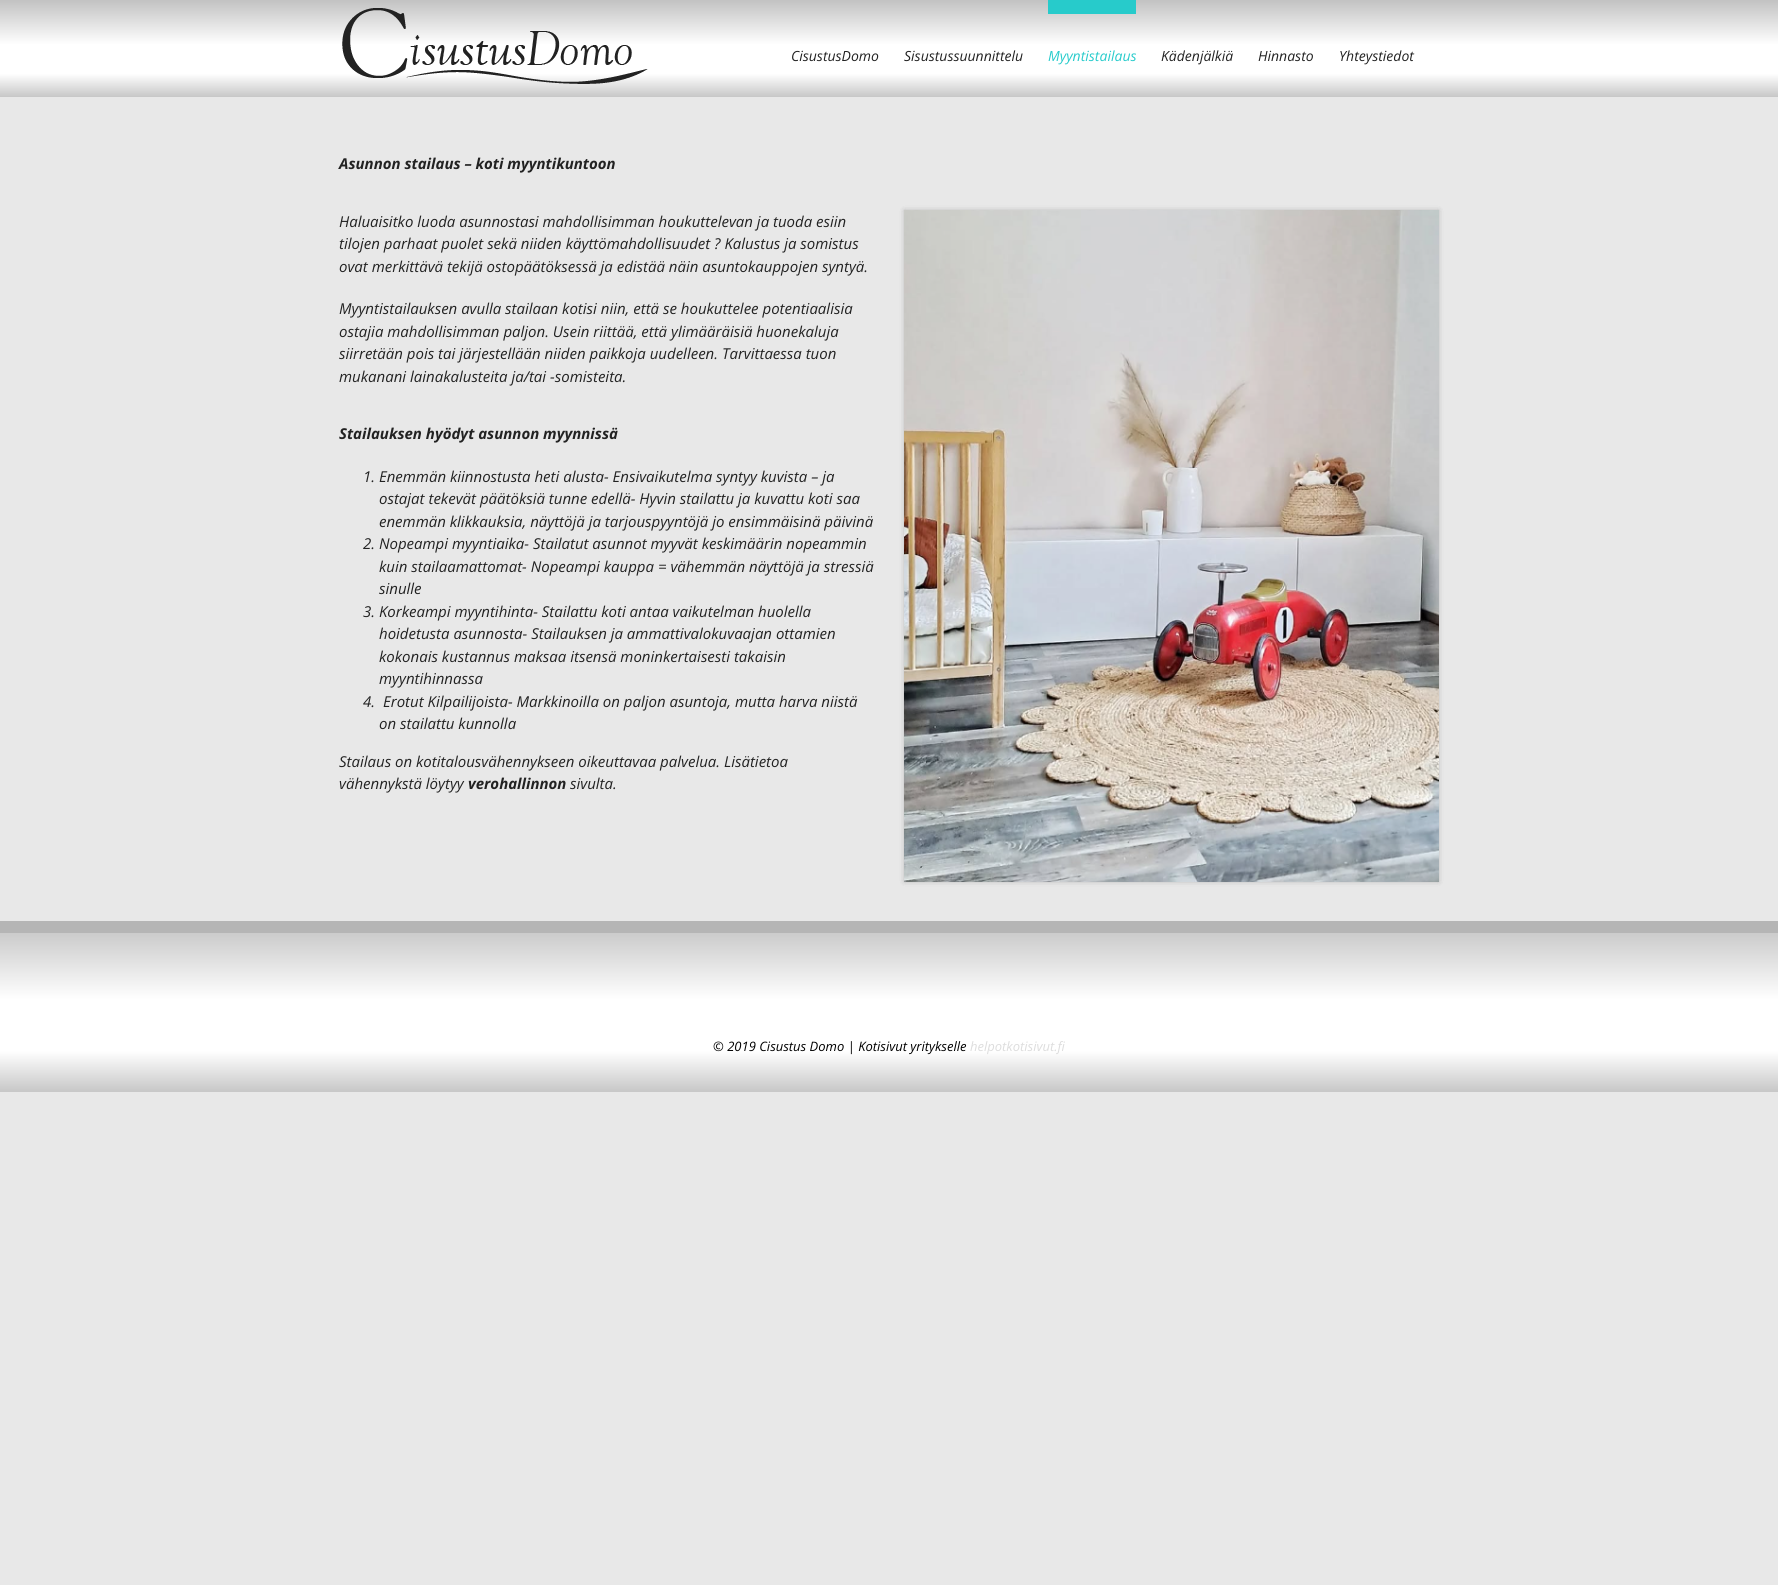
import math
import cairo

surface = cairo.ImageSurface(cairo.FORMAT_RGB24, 1778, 1585)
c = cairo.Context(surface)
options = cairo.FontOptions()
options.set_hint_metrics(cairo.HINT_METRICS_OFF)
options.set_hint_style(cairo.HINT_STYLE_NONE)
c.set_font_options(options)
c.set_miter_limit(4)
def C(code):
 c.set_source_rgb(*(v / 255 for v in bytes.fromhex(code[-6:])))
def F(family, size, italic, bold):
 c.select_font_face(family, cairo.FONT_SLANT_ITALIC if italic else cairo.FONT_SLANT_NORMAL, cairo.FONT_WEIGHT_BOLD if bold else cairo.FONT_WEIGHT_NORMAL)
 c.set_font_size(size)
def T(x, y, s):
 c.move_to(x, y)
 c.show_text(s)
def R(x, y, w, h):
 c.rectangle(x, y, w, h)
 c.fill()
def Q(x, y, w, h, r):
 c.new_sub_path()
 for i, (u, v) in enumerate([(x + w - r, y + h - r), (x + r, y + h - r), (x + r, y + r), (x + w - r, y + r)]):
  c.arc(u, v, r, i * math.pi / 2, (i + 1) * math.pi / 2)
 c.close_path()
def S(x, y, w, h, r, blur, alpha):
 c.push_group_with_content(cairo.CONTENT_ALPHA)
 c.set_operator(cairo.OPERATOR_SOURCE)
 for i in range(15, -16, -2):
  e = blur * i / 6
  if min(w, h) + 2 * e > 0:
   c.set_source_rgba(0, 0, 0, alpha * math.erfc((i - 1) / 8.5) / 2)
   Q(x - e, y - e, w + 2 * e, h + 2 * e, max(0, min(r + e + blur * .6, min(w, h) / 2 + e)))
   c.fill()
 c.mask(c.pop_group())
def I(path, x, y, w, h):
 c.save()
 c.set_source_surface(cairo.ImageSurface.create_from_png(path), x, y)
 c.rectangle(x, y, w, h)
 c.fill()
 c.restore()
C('e8e8e8')
c.paint()
gradient = cairo.LinearGradient(889,0,889,97)
gradient.add_color_stop_rgba(0,0.761,0.761,0.761,1)
gradient.add_color_stop_rgba(.46,1,1,1,1)
gradient.add_color_stop_rgba(.76,1,1,1,1)
gradient.add_color_stop_rgba(1,0.78,0.78,0.78,1)
c.set_source(gradient)
R(0,0,1778,97)
I('1.png',342,8,306,76)
F('Open Sans',14,1,0)
C('222222')
T(791,61,'CisustusDomo')
T(904,61,'Sisustussuunnittelu')
C('27cbcb')
R(1048,0,88,14)
T(1048,61,'Myyntistailaus')
C('222222')
T(1161,61,'Kädenjälkiä')
T(1258,61,'Hinnasto')
T(1339,61,'Yhteystiedot')
F('Open Sans',15,1,1)
T(339,169,'Asunnon stailaus – koti myyntikuntoon')
F('Open Sans',15,1,0)
T(339,227,'Haluaisitko luoda asunnostasi mahdollisimman houkuttelevan ja tuoda esiin')
T(339,249,'tilojen parhaat puolet sekä niiden käyttömahdollisuudet ? Kalustus ja somistus')
T(339,272,'ovat merkittävä tekijä ostopäätöksessä ja edistää näin asuntokauppojen syntyä.')
T(339,314,'Myyntistailauksen avulla stailaan kotisi niin, että se houkuttelee potentiaalisia')
T(339,337,'ostajia mahdollisimman paljon. Usein riittää, että ylimääräisiä huonekaluja')
T(339,359,'siirretään pois tai järjestellään niiden paikkoja uudelleen. Tarvittaessa tuon')
T(339,382,'mukanani lainakalusteita ja/tai -somisteita.')
F('Open Sans',15,1,1)
T(339,439,'Stailauksen hyödyt asunnon myynnissä')
F('Open Sans',15,1,0)
T(363,482,'1. Enemmän kiinnostusta heti alusta- Ensivaikutelma syntyy kuvista – ja')
T(379,504,'ostajat tekevät päätöksiä tunne edellä- Hyvin stailattu ja kuvattu koti saa')
T(379,527,'enemmän klikkauksia, näyttöjä ja tarjouspyyntöjä jo ensimmäisinä päivinä')
T(363,549,'2. Nopeampi myyntiaika- Stailatut asunnot myyvät keskimäärin nopeammin')
T(379,572,'kuin stailaamattomat- Nopeampi kauppa = vähemmän näyttöjä ja stressiä')
T(379,594,'sinulle')
T(363,617,'3. Korkeampi myyntihinta- Stailattu koti antaa vaikutelman huolella')
T(379,639,'hoidetusta asunnosta- Stailauksen ja ammattivalokuvaajan ottamien')
T(379,662,'kokonais kustannus maksaa itsensä moninkertaisesti takaisin')
T(379,684,'myyntihinnassa')
T(363,707,'4.')
T(383,707,'Erotut Kilpailijoista- Markkinoilla on paljon asuntoja, mutta harva niistä')
T(379,729,'on stailattu kunnolla')
T(339,767,'Stailaus on kotitalousvähennykseen oikeuttavaa palvelua. Lisätietoa')
T(339,789,'vähennykstä löytyy')
F('Open Sans',15,1,1)
T(468,789,'verohallinnon')
F('Open Sans',15,1,0)
T(570,789,'sivulta.')
C('000000')
S(904,210,535,672,0,2.5,.1)
S(904,210,535,672,0,2.5,.1)
I('2.png',904,210,535,672)
gradient = cairo.LinearGradient(889,921,889,1092)
gradient.add_color_stop_rgba(0,0.761,0.761,0.761,1)
gradient.add_color_stop_rgba(.46,1,1,1,1)
gradient.add_color_stop_rgba(.76,1,1,1,1)
gradient.add_color_stop_rgba(1,0.78,0.78,0.78,1)
c.set_source(gradient)
R(0,933,1778,159)
C('b5b5b5')
R(0,921,1778,12)
F('Open Sans',13,1,0)
C('000000')
T(713,1051,'© 2019 Cisustus Domo | Kotisivut yritykselle')
C('dddddd')
T(970,1051,'helpotkotisivut.fi')
surface.write_to_png('o.png')
